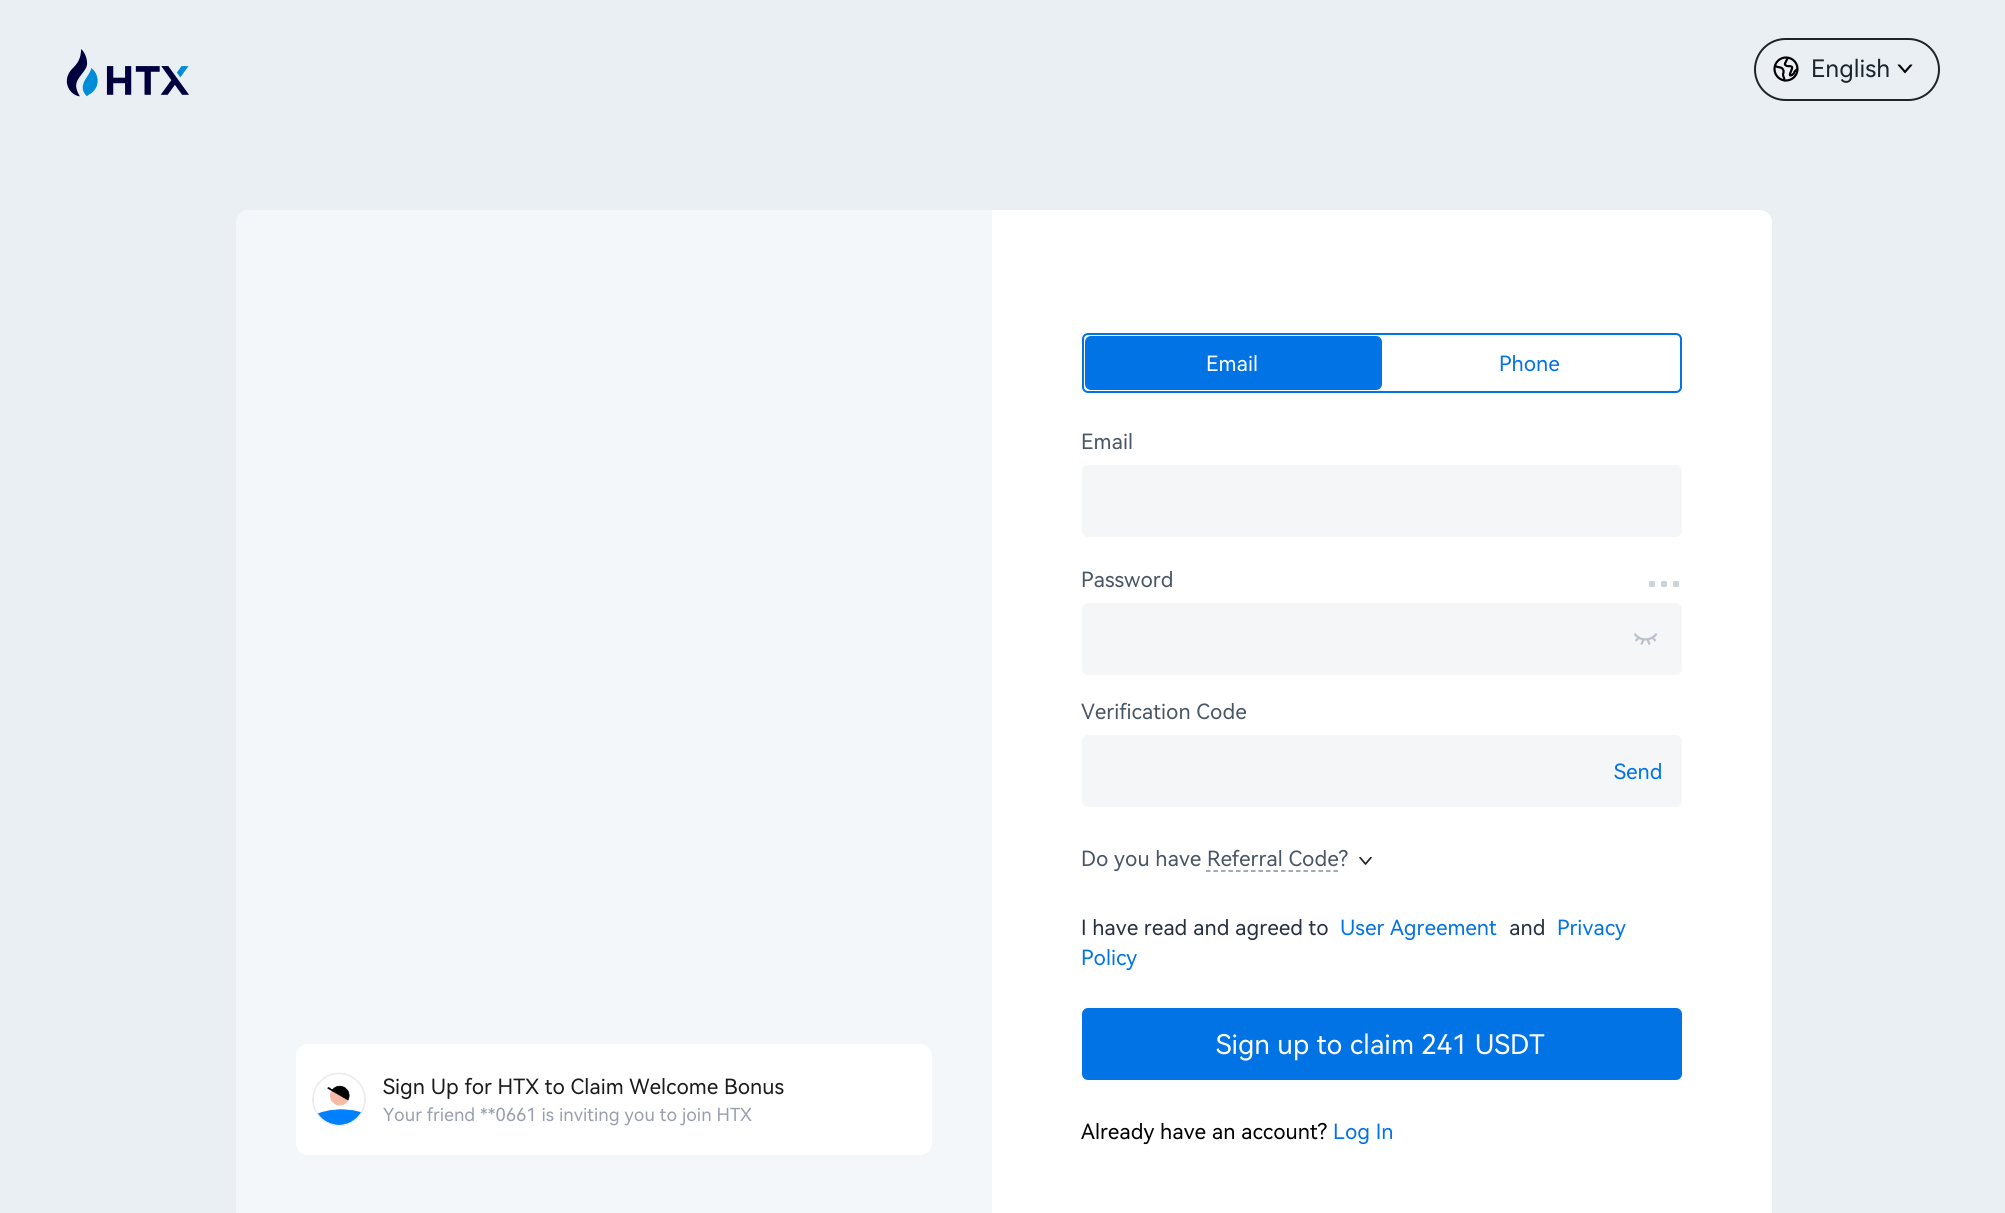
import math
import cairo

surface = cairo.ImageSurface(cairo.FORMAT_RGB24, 2005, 1213)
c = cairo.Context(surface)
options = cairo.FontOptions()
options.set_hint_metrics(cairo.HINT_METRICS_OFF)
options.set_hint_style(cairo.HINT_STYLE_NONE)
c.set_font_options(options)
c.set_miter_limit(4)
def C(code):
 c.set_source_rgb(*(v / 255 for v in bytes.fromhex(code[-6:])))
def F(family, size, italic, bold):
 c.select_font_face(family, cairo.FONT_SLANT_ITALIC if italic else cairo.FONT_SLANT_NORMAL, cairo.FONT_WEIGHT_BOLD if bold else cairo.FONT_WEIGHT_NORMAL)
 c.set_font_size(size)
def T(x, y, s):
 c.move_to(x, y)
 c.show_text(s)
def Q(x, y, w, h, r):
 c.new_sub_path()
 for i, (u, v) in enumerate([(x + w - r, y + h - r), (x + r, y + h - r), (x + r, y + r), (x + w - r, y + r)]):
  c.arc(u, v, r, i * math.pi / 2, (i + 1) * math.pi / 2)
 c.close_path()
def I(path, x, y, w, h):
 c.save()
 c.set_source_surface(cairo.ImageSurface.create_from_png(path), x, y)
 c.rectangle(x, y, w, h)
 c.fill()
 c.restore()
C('eaeff4')
c.paint()
I('1.png',66,49,123,48)
Q(1755,39,184,61,30.5)
C('1c242c')
c.stroke()
I('2.png',1773,56,26,26)
F('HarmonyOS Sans',24,0,0)
T(1811,77,'English')
I('3.png',1897,64,16,10)
C('f4f7fa')
c.new_path()
c.move_to(248,210)
c.line_to(992,210)
c.line_to(992,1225)
c.line_to(248,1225)
c.curve_to(241.5,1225,236,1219.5,236,1213)
c.line_to(236,222)
c.curve_to(236,215.5,241.5,210,248,210)
c.close_path()
c.fill()
C('ffffff')
Q(296,1044,636,111,12)
c.fill()
I('4.png',312,1072,54,55)
F('HarmonyOS Sans',21,0,0)
C('1c1c1e')
T(383,1094,'Sign Up for HTX to Claim Welcome Bonus')
F('HarmonyOS Sans',18,0,0)
C('98a0af')
T(383,1121,'Your friend **0661 is inviting you to join HTX')
C('ffffff')
c.new_path()
c.move_to(992,210)
c.line_to(1760,210)
c.curve_to(1766.5,210,1772,215.5,1772,222)
c.line_to(1772,1213)
c.curve_to(1772,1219.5,1766.5,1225,1760,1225)
c.line_to(992,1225)
c.close_path()
c.fill()
Q(1083,334,598,58,5)
C('0173e5')
c.stroke()
Q(1085,336,297,54,6)
c.fill()
F('HarmonyOS Sans',21,0,0)
C('ffffff')
T(1206,371,'Email')
C('0173e5')
T(1499,371,'Phone')
C('495666')
T(1081,449,'Email')
C('f4f6f7')
Q(1082,465,600,72,6)
c.fill()
C('495666')
T(1081,587,'Password')
C('ccd2da')
Q(1649,581,6,6,1.5)
c.fill()
Q(1661,581,6,6,1.5)
c.fill()
Q(1673,581,6,6,1.5)
c.fill()
C('f4f6f7')
Q(1082,603,600,72,6)
c.fill()
I('5.png',1634,633,24,12)
C('495666')
T(1081,719,'Verification Code')
C('f4f6f7')
Q(1082,735,600,72,6)
c.fill()
C('0173e5')
T(1614,779,'Send')
C('495666')
T(1081,866,'Do you have Referral Code?')
c.new_path()
c.move_to(1206,871)
c.line_to(1338,871)
C('7f8fa4')
c.set_line_width(1.5)
c.set_dash([4.5,3])
c.stroke()
c.save()
c.rectangle(1359,857,14,9)
c.clip()
c.new_path()
c.move_to(1360,857.5)
c.line_to(1365.5,864)
c.line_to(1371,857.5)
C('222222')
c.set_line_width(1.7)
c.set_line_cap(cairo.LINE_CAP_ROUND)
c.set_line_join(cairo.LINE_JOIN_ROUND)
c.set_dash([])
c.stroke()
c.restore()
C('263241')
T(1081,935,'I have read and agreed to')
C('0173e5')
T(1340,935,'User Agreement')
C('263241')
T(1509,935,'and')
C('0173e5')
T(1557,935,'Privacy')
T(1081,965,'Policy')
Q(1082,1008,600,72,6)
c.fill()
F('HarmonyOS Sans',27,0,0)
C('ffffff')
T(1216,1054,'Sign up to claim 241 USDT')
F('HarmonyOS Sans',21,0,0)
C('000000')
T(1081,1139,'Already have an account?')
C('0173e5')
T(1333,1139,'Log In')
surface.write_to_png('o.png')
